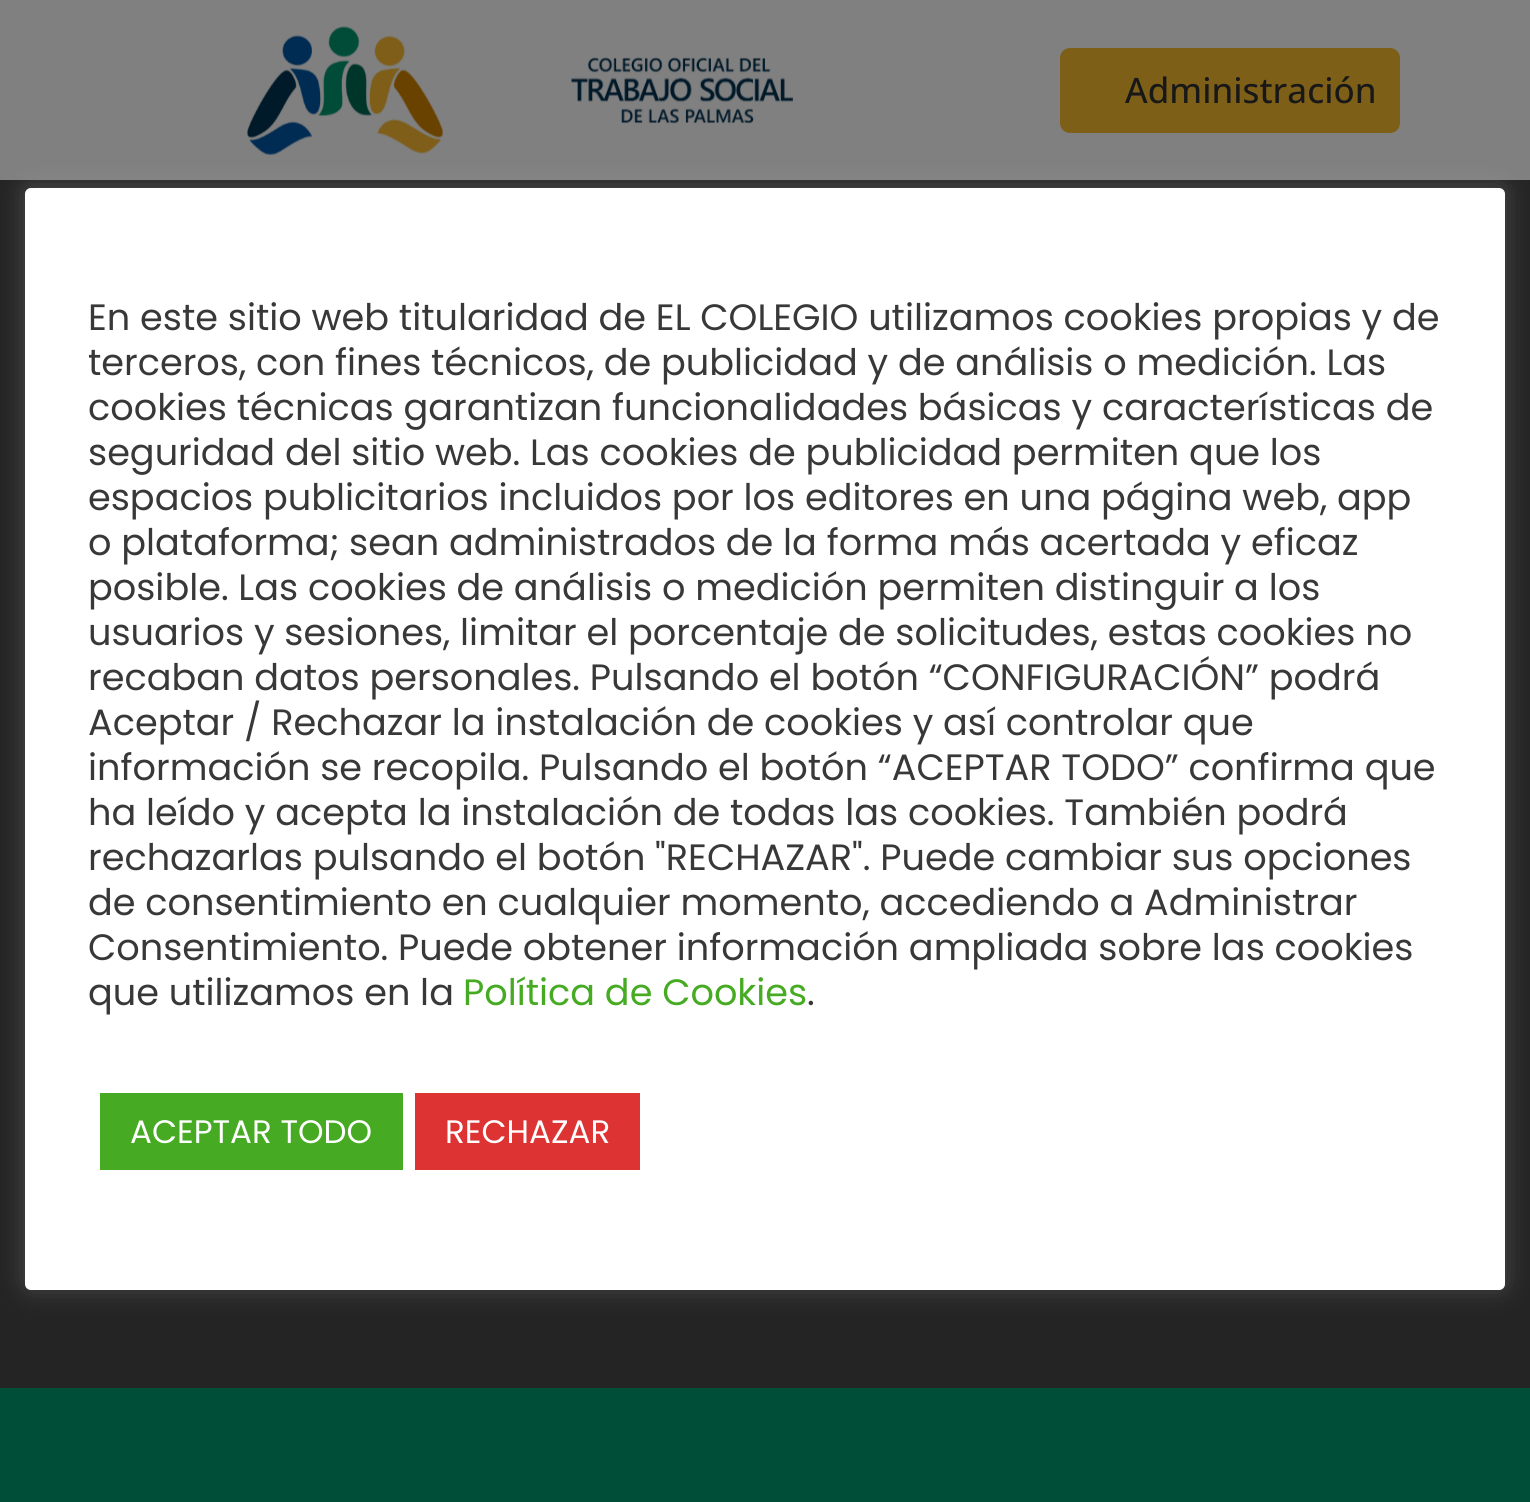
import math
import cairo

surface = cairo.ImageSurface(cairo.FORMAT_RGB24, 1530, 1502)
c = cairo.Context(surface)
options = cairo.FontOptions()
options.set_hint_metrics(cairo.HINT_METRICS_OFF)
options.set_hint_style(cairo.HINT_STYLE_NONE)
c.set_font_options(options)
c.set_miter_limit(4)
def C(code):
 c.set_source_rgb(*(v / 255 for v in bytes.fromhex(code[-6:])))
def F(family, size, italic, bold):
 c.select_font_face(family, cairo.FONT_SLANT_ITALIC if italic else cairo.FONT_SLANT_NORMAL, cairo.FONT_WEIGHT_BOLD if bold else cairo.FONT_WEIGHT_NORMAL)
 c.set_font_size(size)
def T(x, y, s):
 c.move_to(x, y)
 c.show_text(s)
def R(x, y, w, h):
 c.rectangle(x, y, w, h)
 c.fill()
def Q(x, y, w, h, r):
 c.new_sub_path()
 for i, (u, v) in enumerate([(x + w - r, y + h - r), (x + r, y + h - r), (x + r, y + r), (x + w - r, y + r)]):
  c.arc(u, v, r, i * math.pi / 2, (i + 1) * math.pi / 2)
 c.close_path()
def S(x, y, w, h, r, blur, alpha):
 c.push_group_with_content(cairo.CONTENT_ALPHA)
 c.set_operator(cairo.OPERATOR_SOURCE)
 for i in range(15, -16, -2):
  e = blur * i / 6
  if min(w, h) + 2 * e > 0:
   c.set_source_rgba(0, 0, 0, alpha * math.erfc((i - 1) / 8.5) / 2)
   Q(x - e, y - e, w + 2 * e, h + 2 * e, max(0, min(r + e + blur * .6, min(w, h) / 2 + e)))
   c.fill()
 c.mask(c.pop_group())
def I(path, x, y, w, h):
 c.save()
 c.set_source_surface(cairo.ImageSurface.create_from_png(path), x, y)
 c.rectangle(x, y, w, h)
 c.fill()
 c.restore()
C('242424')
c.paint()
C('808080')
R(0,0,1530,180)
I('1.png',247,26,196,130)
I('2.png',571,57,222,67)
C('7e5f18')
Q(1060,48,340,85,10)
c.fill()
F('Open Sans Medium',35,0,0)
C('181818')
T(1125,103,'Administración')
C('004d38')
R(0,1388,1530,114)
C('acabab')
S(25,185,1480,1103,6,12.5,.3)
C('ffffff')
Q(25,188,1480,1102,6)
c.fill()
F('Poppins',36.65,0,0)
C('383838')
T(88,330,'En este sitio web titularidad de EL COLEGIO utilizamos cookies propias y de')
T(88,375,'terceros, con fines técnicos, de publicidad y de análisis o medición. Las')
T(88,420,'cookies técnicas garantizan funcionalidades básicas y características de')
T(88,465,'seguridad del sitio web. Las cookies de publicidad permiten que los')
T(88,510,'espacios publicitarios incluidos por los editores en una página web, app')
T(88,555,'o plataforma; sean administrados de la forma más acertada y eficaz')
T(88,600,'posible. Las cookies de análisis o medición permiten distinguir a los')
T(88,645,'usuarios y sesiones, limitar el porcentaje de solicitudes, estas cookies no')
T(88,690,'recaban datos personales. Pulsando el botón “CONFIGURACIÓN” podrá')
T(88,735,'Aceptar / Rechazar la instalación de cookies y así controlar que')
T(88,780,'información se recopila. Pulsando el botón “ACEPTAR TODO” confirma que')
T(88,825,'ha leído y acepta la instalación de todas las cookies. También podrá')
T(88,870,'rechazarlas pulsando el botón "RECHAZAR". Puede cambiar sus opciones')
T(88,915,'de consentimiento en cualquier momento, accediendo a Administrar')
T(88,960,'Consentimiento. Puede obtener información ampliada sobre las cookies')
T(88,1005,'que utilizamos en la')
C('46ab23')
T(463,1005,'Política de Cookies')
C('383838')
T(807,1005,'.')
C('46ab23')
R(100,1093,303,77)
F('Poppins',32.5,0,0)
C('ffffff')
T(130,1143,'ACEPTAR TODO')
C('dd3333')
R(415,1093,225,77)
C('ffffff')
T(445,1143,'RECHAZAR')
surface.write_to_png('o.png')
